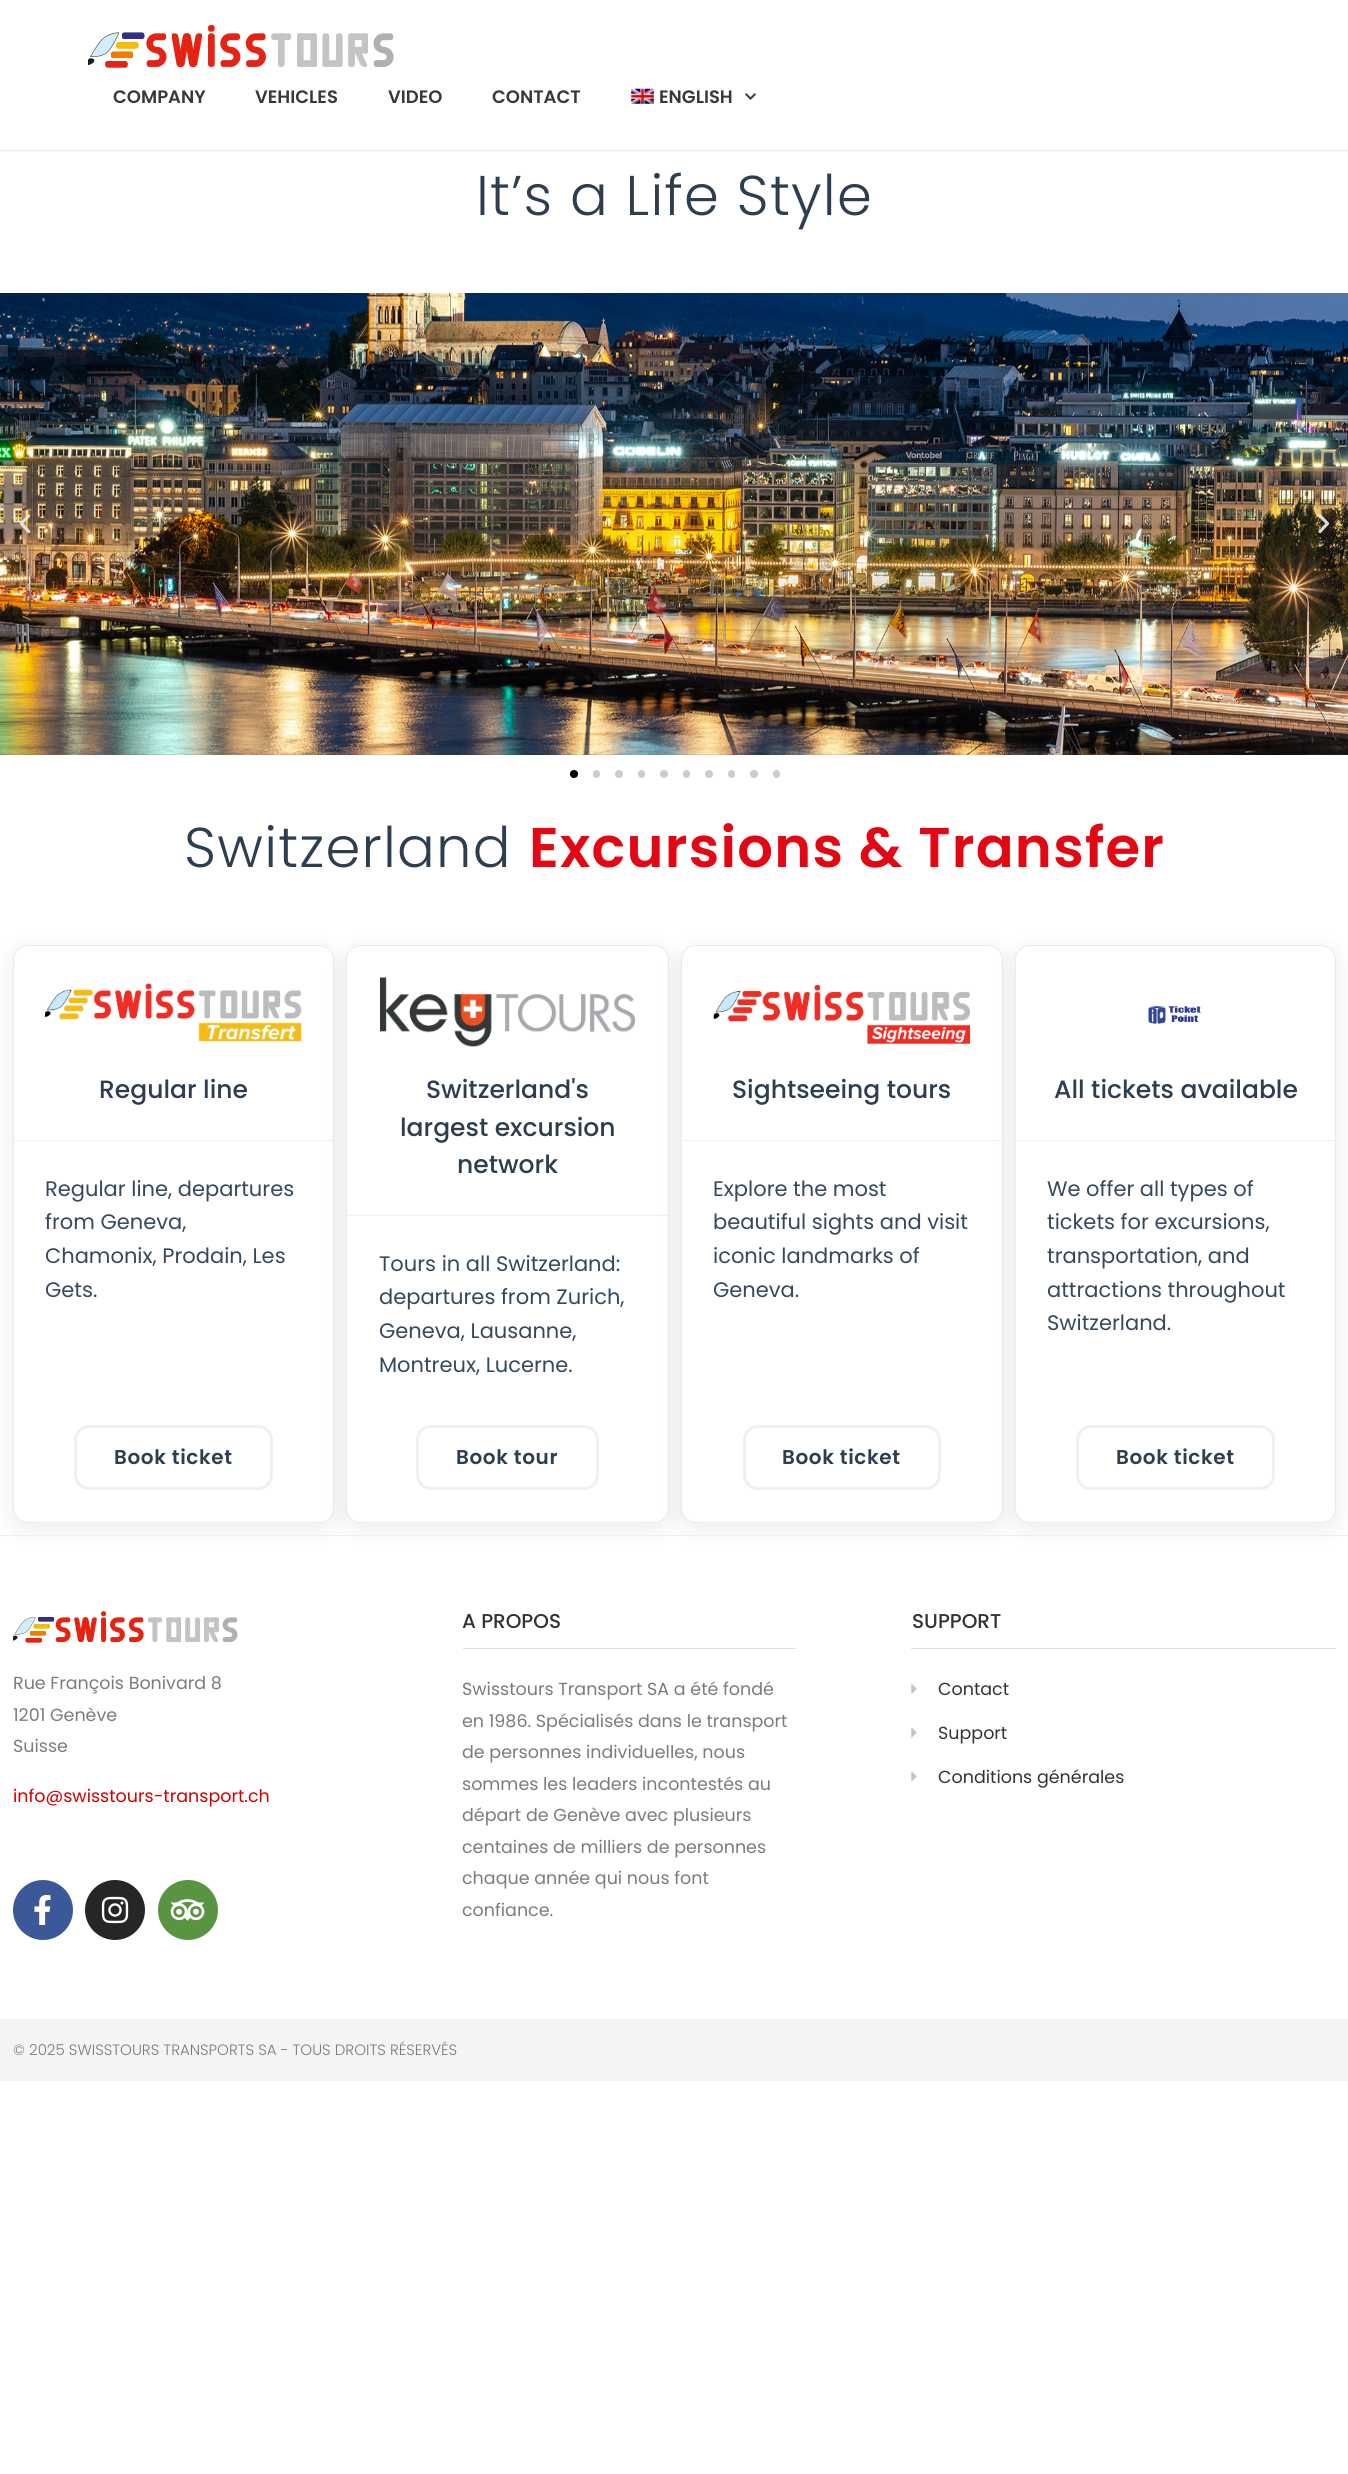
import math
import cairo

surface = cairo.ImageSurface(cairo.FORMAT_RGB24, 1348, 2474)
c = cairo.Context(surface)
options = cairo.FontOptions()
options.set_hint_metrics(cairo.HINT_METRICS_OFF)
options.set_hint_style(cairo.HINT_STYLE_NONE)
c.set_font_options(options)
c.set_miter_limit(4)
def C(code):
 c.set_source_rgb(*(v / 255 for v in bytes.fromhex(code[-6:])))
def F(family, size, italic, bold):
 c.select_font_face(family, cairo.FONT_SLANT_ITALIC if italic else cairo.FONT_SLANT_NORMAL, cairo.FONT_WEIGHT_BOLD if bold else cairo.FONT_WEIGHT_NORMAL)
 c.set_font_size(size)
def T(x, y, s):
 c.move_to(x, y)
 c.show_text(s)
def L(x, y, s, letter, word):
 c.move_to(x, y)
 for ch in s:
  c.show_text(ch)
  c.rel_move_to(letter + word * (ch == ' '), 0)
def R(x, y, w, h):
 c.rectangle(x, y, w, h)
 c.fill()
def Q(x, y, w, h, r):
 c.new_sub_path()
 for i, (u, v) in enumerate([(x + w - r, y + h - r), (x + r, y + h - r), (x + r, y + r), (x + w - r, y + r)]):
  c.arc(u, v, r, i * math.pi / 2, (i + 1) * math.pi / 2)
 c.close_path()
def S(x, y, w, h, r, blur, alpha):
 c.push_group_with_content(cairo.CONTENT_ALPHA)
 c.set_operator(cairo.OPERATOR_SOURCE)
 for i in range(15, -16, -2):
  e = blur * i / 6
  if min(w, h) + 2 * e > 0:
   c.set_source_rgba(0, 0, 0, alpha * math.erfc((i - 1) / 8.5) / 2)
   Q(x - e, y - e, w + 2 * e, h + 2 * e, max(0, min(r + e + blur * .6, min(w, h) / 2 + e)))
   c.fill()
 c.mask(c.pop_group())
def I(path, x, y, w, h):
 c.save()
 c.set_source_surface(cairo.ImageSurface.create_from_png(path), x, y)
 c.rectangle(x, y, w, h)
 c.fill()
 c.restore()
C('ffffff')
c.paint()
C('eeeeee')
R(0,150,1348,1)
I('1.png',88,25,306,43)
F('Poppins SemiBold',18,0,0)
C('393939')
T(113,103,'COMPANY')
T(255,103,'VEHICLES')
T(388,103,'VIDEO')
T(492,103,'CONTACT')
I('2.png',631,88,23,16)
T(659,103,'ENGLISH')
I('3.png',745,93,11,7)
F('Poppins Light',56,0,0)
C('2c3e50')
L(476,215,'It’s a Life Style',1.25,0)
I('5.png',0,754,1348,1)
I('4.png',0,293,1348,462)
I('6.png',19,514,12,20)
I('7.png',1318,514,12,20)
C('000000')
c.arc(574,774,4,0,2 * math.pi)
c.fill()
C('cccccc')
Q(593,770,7,8,3.5)
c.fill()
c.arc(619,774,4,0,2 * math.pi)
c.fill()
Q(638,770,7,8,3.5)
c.fill()
c.arc(664,774,4,0,2 * math.pi)
c.fill()
Q(683,770,7,8,3.5)
c.fill()
c.arc(709,774,4,0,2 * math.pi)
c.fill()
Q(728,770,7,8,3.5)
c.fill()
c.arc(754,774,4,0,2 * math.pi)
c.fill()
Q(773,770,7,8,3.5)
c.fill()
C('2c3e50')
L(184,867,'Switzerland',1.25,0)
F('Poppins SemiBold',56,0,0)
C('e30613')
L(529,867,'Excursions & Transfer',1.25,0)
C('000000')
S(13,951,321,578,15,12.5,.08)
C('ffffff')
Q(13.5,945.5,320,577,14.5)
c.fill_preserve()
C('eaeaea')
c.set_line_width(1)
c.stroke()
C('f0f0f0')
R(14,1140,319,1)
I('8.png',45,983,257,59)
F('Poppins Medium',25,0,0)
C('2c3e50')
T(99,1098,'Regular line')
F('Poppins',21,0,0)
C('34495e')
T(45,1196,'Regular line, departures')
T(45,1229,'from Geneva,')
T(45,1263,'Chamonix, Prodain, Les')
T(45,1297,'Gets.')
Q(75.5,1426.5,196,62,13.5)
C('f0f0f0')
c.set_line_width(3)
c.stroke()
F('Poppins SemiBold',20,0,0)
C('2c3e50')
L(114,1464,'Book ticket',.6,0)
C('000000')
S(346,951,323,578,15,12.5,.08)
C('ffffff')
Q(346.5,945.5,322,577,14.5)
c.fill_preserve()
C('eaeaea')
c.set_line_width(1)
c.stroke()
C('f0f0f0')
R(348,1215,320,1)
I('9.png',380,977,255,70)
F('Poppins Medium',25,0,0)
C('2c3e50')
T(426,1098,'Switzerland\'s')
T(400,1136,'largest excursion')
T(457,1173,'network')
F('Poppins',21,0,0)
C('34495e')
T(379,1271,'Tours in all Switzerland:')
T(379,1304,'departures from Zurich,')
T(379,1338,'Geneva, Lausanne,')
T(379,1372,'Montreux, Lucerne.')
Q(417.5,1426.5,180,62,13.5)
C('f0f0f0')
c.set_line_width(3)
c.stroke()
F('Poppins SemiBold',20,0,0)
C('2c3e50')
L(456,1464,'Book tour',.6,0)
C('000000')
S(681,951,322,578,15,12.5,.08)
C('ffffff')
Q(681.5,945.5,321,577,14.5)
c.fill_preserve()
C('eaeaea')
c.set_line_width(1)
c.stroke()
C('f0f0f0')
R(683,1140,318,1)
I('10.png',713,985,257,59)
F('Poppins Medium',25,0,0)
C('2c3e50')
T(732,1098,'Sightseeing tours')
F('Poppins',21,0,0)
C('34495e')
T(713,1196,'Explore the most')
T(713,1229,'beautiful sights and visit')
T(713,1263,'iconic landmarks of')
T(713,1297,'Geneva.')
Q(744.5,1426.5,195,62,13.5)
C('f0f0f0')
c.set_line_width(3)
c.stroke()
F('Poppins SemiBold',20,0,0)
C('2c3e50')
L(782,1464,'Book ticket',.6,0)
C('000000')
S(1015,951,321,578,15,12.5,.08)
C('ffffff')
Q(1015.5,945.5,320,577,14.5)
c.fill_preserve()
C('eaeaea')
c.set_line_width(1)
c.stroke()
C('f0f0f0')
R(1016,1140,319,1)
I('11.png',1148,1006,53,18)
F('Poppins Medium',25,0,0)
C('2c3e50')
T(1054,1098,'All tickets available')
F('Poppins',21,0,0)
C('34495e')
T(1047,1196,'We offer all types of')
T(1047,1229,'tickets for excursions,')
T(1047,1263,'transportation, and')
T(1047,1297,'attractions throughout')
T(1047,1330,'Switzerland.')
Q(1077.5,1426.5,196,62,13.5)
C('f0f0f0')
c.set_line_width(3)
c.stroke()
F('Poppins SemiBold',20,0,0)
C('2c3e50')
L(1116,1464,'Book ticket',.6,0)
C('eeeeee')
R(0,1535,1348,1)
I('12.png',13,1611,225,32)
F('Poppins',17.5,0,0)
C('787c81')
T(13,1689,'Rue François Bonivard 8')
T(13,1721,'1201 Genève')
T(13,1752,'Suisse')
C('d20000')
T(13,1802,'info@swisstours-transport.ch')
C('3b5998')
c.new_path()
c.arc(43,1910,30,0,2 * math.pi)
c.fill()
I('13.png',34,1895,17,30)
C('262626')
c.arc(115,1910,30,0,2 * math.pi)
c.fill()
I('14.png',101,1896,28,28)
C('589442')
c.arc(188,1910,30,0,2 * math.pi)
c.fill()
I('15.png',170,1899,35,22)
C('e0e0e0')
R(463,1648,333,1)
F('Poppins Medium',20,0,0)
C('333333')
T(462,1628,'A PROPOS')
F('Poppins',17.5,0,0)
C('787c81')
T(462,1695,'Swisstours Transport SA a été fondé')
T(462,1727,'en 1986. Spécialisés dans le transport')
T(462,1758,'de personnes individuelles, nous')
T(462,1790,'sommes les leaders incontestés au')
T(462,1821,'départ de Genève avec plusieurs')
T(462,1853,'centaines de milliers de personnes')
T(462,1884,'chaque année qui nous font')
T(462,1916,'confiance.')
C('e0e0e0')
R(911,1648,425,1)
F('Poppins Medium',20,0,0)
C('333333')
T(912,1628,'SUPPORT')
I('16.png',911,1684,6,10)
F('Poppins',17.5,0,0)
T(938,1695,'Contact')
I('17.png',911,1728,6,10)
T(938,1739,'Support')
I('18.png',911,1771,6,10)
T(938,1783,'Conditions générales')
C('f4f4f4')
R(0,2019,1348,62)
F('Poppins Light',15,0,0)
C('7a7a7a')
T(13,2055,'© 2025 SWISSTOURS TRANSPORTS SA - TOUS DROITS RÉSERVÉS')
surface.write_to_png('o.png')
